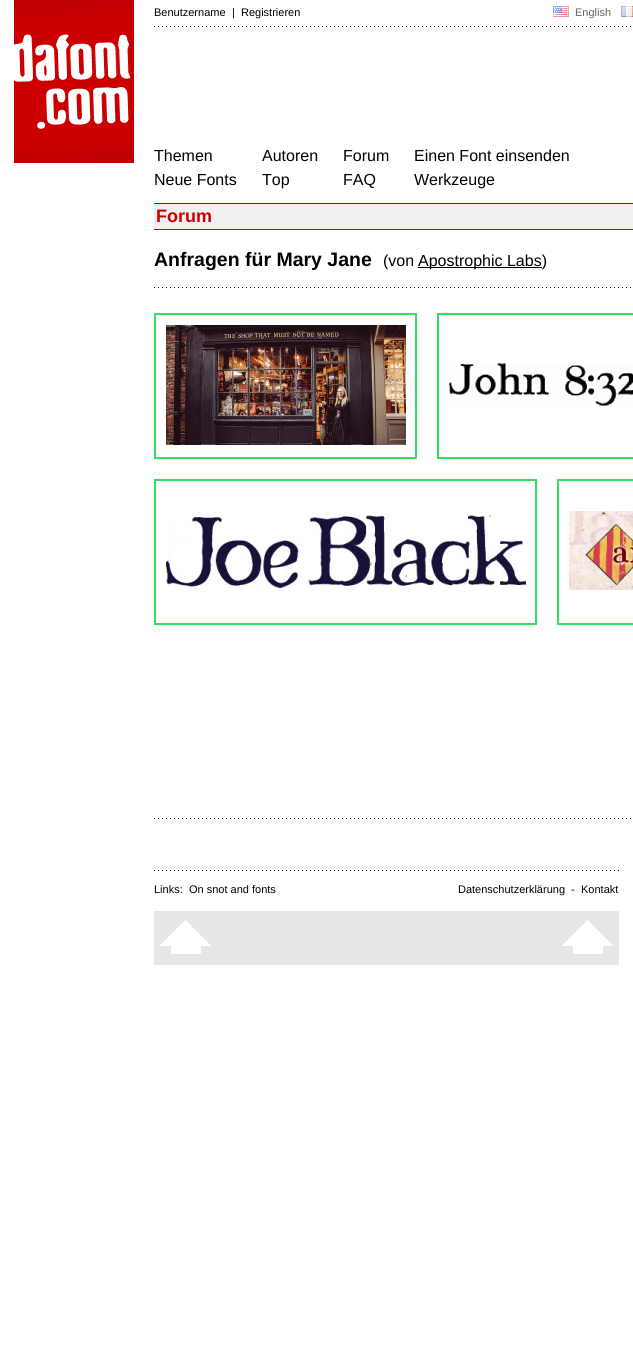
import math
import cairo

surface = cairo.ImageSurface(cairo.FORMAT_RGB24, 633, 1356)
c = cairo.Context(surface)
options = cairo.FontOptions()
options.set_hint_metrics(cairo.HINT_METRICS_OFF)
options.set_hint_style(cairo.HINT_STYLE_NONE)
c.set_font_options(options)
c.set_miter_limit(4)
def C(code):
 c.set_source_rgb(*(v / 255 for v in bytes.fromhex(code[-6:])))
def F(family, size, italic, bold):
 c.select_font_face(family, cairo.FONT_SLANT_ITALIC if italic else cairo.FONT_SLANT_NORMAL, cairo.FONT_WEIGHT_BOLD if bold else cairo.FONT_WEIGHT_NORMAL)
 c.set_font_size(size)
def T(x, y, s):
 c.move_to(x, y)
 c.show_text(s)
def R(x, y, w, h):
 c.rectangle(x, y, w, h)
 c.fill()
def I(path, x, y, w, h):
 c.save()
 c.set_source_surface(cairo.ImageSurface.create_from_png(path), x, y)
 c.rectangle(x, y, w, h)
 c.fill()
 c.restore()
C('ffffff')
c.paint()
I('1.png',14,0,120,163)
F('Liberation Sans',11,0,0)
C('000000')
T(154,16,'Benutzername')
T(232,16,'|')
T(241,16,'Registrieren')
I('2.png',553,6,16,11)
C('666666')
T(575,16,'English')
I('3.png',621,6,12,11)
I('4.png',154,26,477,1)
F('Liberation Sans',16,0,0)
C('000000')
T(154,161,'Themen')
T(154,185,'Neue Fonts')
T(262,161,'Autoren')
T(262,185,'Top')
T(343,161,'Forum')
T(343,185,'FAQ')
T(414,161,'Einen Font einsenden')
T(414,185,'Werkzeuge')
C('f0f0f0')
R(154,204,479,25)
C('cc0000')
R(154,203,479,1)
R(154,229,479,1)
F('Liberation Sans',18,0,1)
T(156,222,'Forum')
F('Liberation Sans',19.5,0,1)
C('000000')
T(154,266,'Anfragen für Mary Jane')
F('Liberation Sans',16,0,0)
T(383,266,'(von')
R(418,267,124,1)
T(418,266,'Apostrophic Labs)')
I('4.png',154,287,477,1)
c.rectangle(155,314,261,144)
C('33dd66')
c.stroke()
I('5.png',166,325,240,120)
c.rectangle(438,314,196,144)
c.stroke()
I('6.png',449,363,184,43)
c.rectangle(155,480,381,144)
c.stroke()
I('7.png',166,514,360,74)
c.rectangle(558,480,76,144)
c.stroke()
I('8.png',569,511,64,79)
I('4.png',154,818,477,1)
I('9.png',154,870,465,1)
F('Liberation Sans',11,0,0)
C('000000')
T(154,893,'Links:')
T(189,893,'On snot and fonts')
T(458,893,'Datenschutzerklärung')
T(571,893,'-')
T(581,893,'Kontakt')
C('e6e6e6')
R(154,911,465,54)
I('10.png',160,920,51,34)
I('10.png',562,920,51,34)
surface.write_to_png('o.png')
